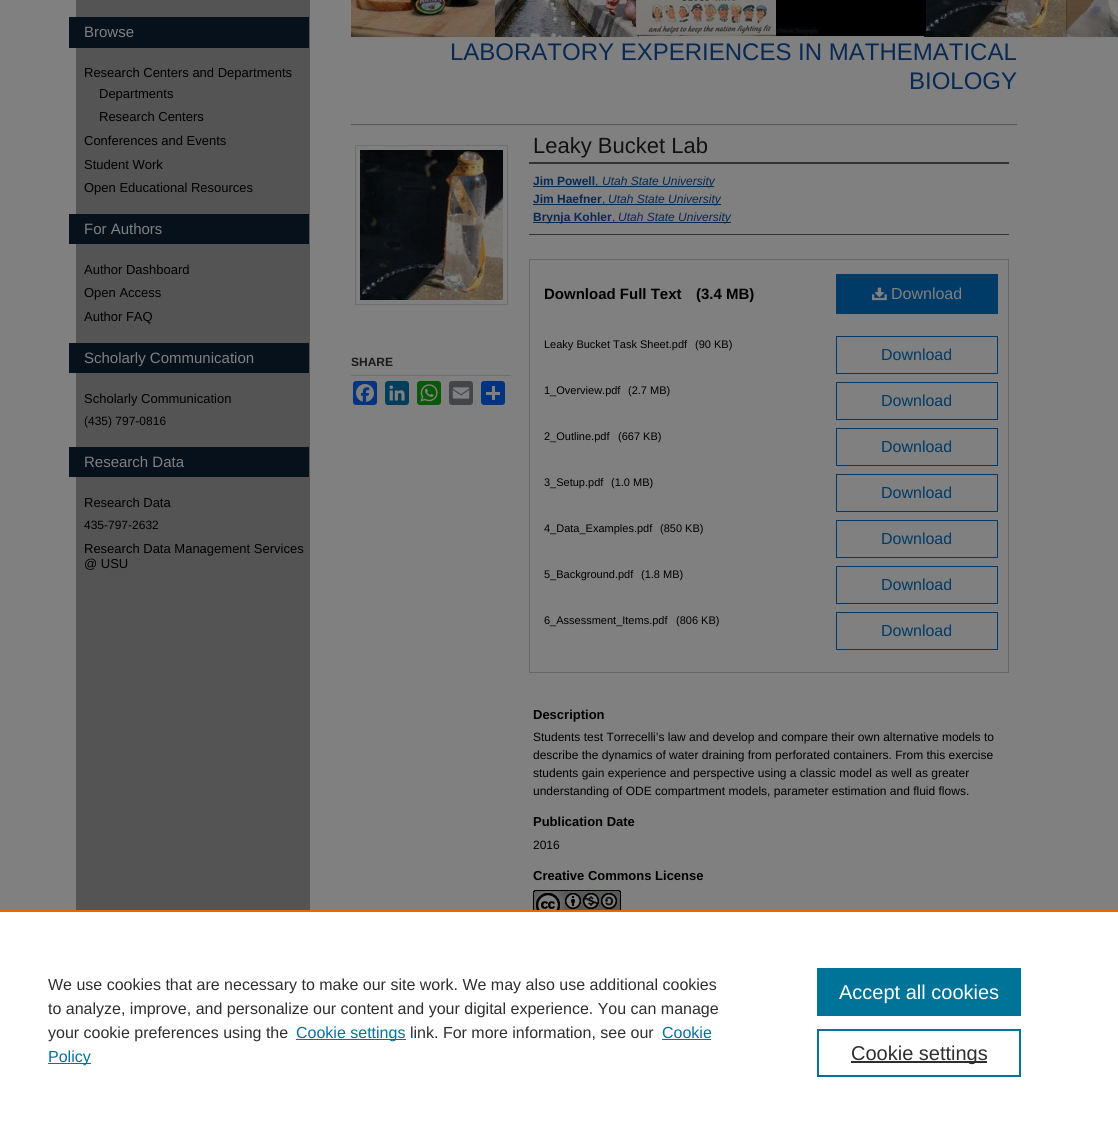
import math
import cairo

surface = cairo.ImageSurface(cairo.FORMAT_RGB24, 1118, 1130)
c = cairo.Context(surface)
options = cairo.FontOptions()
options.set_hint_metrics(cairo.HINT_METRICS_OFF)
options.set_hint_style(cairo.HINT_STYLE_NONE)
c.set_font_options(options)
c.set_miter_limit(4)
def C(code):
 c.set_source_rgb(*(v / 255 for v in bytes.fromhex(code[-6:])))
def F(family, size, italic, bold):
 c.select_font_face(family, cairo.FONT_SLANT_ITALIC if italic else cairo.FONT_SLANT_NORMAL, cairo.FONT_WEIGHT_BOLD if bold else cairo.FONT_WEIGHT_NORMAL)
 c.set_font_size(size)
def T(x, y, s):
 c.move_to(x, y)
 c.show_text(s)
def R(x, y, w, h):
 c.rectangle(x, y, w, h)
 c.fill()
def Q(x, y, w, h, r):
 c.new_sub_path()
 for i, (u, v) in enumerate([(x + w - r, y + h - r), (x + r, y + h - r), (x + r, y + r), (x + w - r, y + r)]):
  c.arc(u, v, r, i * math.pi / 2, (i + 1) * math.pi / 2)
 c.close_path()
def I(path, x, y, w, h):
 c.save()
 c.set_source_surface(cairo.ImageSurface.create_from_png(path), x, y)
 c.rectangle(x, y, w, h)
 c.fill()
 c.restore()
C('808080')
c.paint()
C('555454')
R(76,0,234,910)
C('06111c')
R(69,17,240,31)
F('Liberation Sans',15,0,0)
C('808080')
T(84,37,'Browse')
F('Liberation Sans',13,0,0)
C('000000')
T(84,77,'Research Centers and Departments')
T(99,98,'Departments')
T(99,121,'Research Centers')
T(84,145,'Conferences and Events')
T(84,169,'Student Work')
T(84,192,'Open Educational Resources')
C('06111c')
R(69,214,240,30)
F('Liberation Sans',15,0,0)
C('808080')
T(84,234,'For Authors')
F('Liberation Sans',13,0,0)
C('000000')
T(84,274,'Author Dashboard')
T(84,297,'Open Access')
T(84,321,'Author FAQ')
C('06111c')
R(69,343,240,30)
F('Liberation Sans',15,0,0)
C('808080')
T(84,363,'Scholarly Communication')
F('Liberation Sans',13,0,0)
C('000000')
T(84,403,'Scholarly Communication')
F('Liberation Sans',12,0,0)
T(84,425,'(435) 797-0816')
C('06111c')
R(69,447,240,30)
F('Liberation Sans',15,0,0)
C('808080')
T(84,467,'Research Data')
F('Liberation Sans',13,0,0)
C('000000')
T(84,507,'Research Data')
F('Liberation Sans',12,0,0)
T(84,529,'435-797-2632')
F('Liberation Sans',13,0,0)
T(84,553,'Research Data Management Services')
T(84,568,'@ USU')
I('1.png',351,0,767,38)
F('Liberation Sans',24,0,0)
C('082953')
T(450,60,'LABORATORY EXPERIENCES IN MATHEMATICAL')
T(909,89,'BIOLOGY')
c.rectangle(355.5,145.5,152,159)
C('6f6f6f')
c.set_line_width(1)
c.stroke()
I('2.png',360,150,143,150)
R(351,375,160,1)
F('Liberation Sans',12,0,1)
C('1a1a1a')
T(351,366,'SHARE')
C('043380')
Q(353,381,24,24,3)
c.fill()
I('3.png',356,384,18,18)
C('003e5b')
Q(385,381,24,24,3)
c.fill()
I('4.png',389,385,16,16)
C('095805')
Q(417,381,24,24,3)
c.fill()
I('5.png',420,384,18,18)
C('444548')
Q(449,381,24,24,3)
c.fill()
I('6.png',452,387,18,12)
C('013380')
Q(481,381,24,24,3)
c.fill()
C('808080')
R(492,386,3,14)
R(486,392,14,3)
C('555555')
R(351,124,666,1)
F('Liberation Sans',22,0,0)
C('111111')
T(533,153,'Leaky Bucket Lab')
C('333333')
R(529,162,480,2)
R(529,234,480,1)
F('Liberation Sans',12,0,1)
C('082953')
T(533,185,'Jim Powell')
R(533,186,181,1)
F('Liberation Sans',12,0,0)
T(595,185,',')
F('Liberation Sans',12,1,0)
T(602,185,'Utah State University')
F('Liberation Sans',12,0,1)
T(533,203,'Jim Haefner')
R(533,204,188,1)
F('Liberation Sans',12,0,0)
T(602,203,',')
F('Liberation Sans',12,1,0)
T(608,203,'Utah State University')
R(533,222,198,1)
F('Liberation Sans',12,0,1)
T(533,221,'Brynja Kohler')
F('Liberation Sans',12,0,0)
T(612,221,',')
F('Liberation Sans',12,1,0)
T(618,221,'Utah State University')
c.rectangle(529.5,259.5,479,413)
C('666666')
c.stroke()
F('Liberation Sans',15,0,1)
C('000000')
T(544,299,'Download Full Text')
T(696,299,'(3.4 MB)')
C('003a66')
R(836,274,162,40)
I('7.png',872,287,15,14)
F('Liberation Sans',16,0,0)
C('808080')
T(891,299,'Download')
F('Liberation Sans',11,0,0)
C('000000')
T(544,348,'Leaky Bucket Task Sheet.pdf')
T(695,348,'(90 KB)')
c.rectangle(836.5,336.5,161,37)
C('003a66')
c.stroke()
F('Liberation Sans',16,0,0)
T(881,360,'Download')
F('Liberation Sans',11,0,0)
C('000000')
T(544,394,'1_Overview.pdf')
T(628,394,'(2.7 MB)')
c.rectangle(836.5,382.5,161,37)
C('003a66')
c.stroke()
F('Liberation Sans',16,0,0)
T(881,406,'Download')
F('Liberation Sans',11,0,0)
C('000000')
T(544,440,'2_Outline.pdf')
T(618,440,'(667 KB)')
c.rectangle(836.5,428.5,161,37)
C('003a66')
c.stroke()
F('Liberation Sans',16,0,0)
T(881,452,'Download')
F('Liberation Sans',11,0,0)
C('000000')
T(544,486,'3_Setup.pdf')
T(611,486,'(1.0 MB)')
c.rectangle(836.5,474.5,161,37)
C('003a66')
c.stroke()
F('Liberation Sans',16,0,0)
T(881,498,'Download')
F('Liberation Sans',11,0,0)
C('000000')
T(544,532,'4_Data_Examples.pdf')
T(660,532,'(850 KB)')
c.rectangle(836.5,520.5,161,37)
C('003a66')
c.stroke()
F('Liberation Sans',16,0,0)
T(881,544,'Download')
F('Liberation Sans',11,0,0)
C('000000')
T(544,578,'5_Background.pdf')
T(641,578,'(1.8 MB)')
c.rectangle(836.5,566.5,161,37)
C('003a66')
c.stroke()
F('Liberation Sans',16,0,0)
T(881,590,'Download')
F('Liberation Sans',11,0,0)
C('000000')
T(544,624,'6_Assessment_Items.pdf')
T(676,624,'(806 KB)')
c.rectangle(836.5,612.5,161,37)
C('003a66')
c.stroke()
F('Liberation Sans',16,0,0)
T(881,636,'Download')
F('Liberation Sans',13,0,1)
C('000000')
T(533,719,'Description')
F('Liberation Sans',12,0,0)
T(533,741,'Students test Torrecelli’s law and develop and compare their own alternative models to')
T(533,759,'describe the dynamics of water draining from perforated containers. From this exercise')
T(533,777,'students gain experience and perspective using a classic model as well as greater')
T(533,795,'understanding of ODE compartment models, parameter estimation and fluid flows.')
F('Liberation Sans',13,0,1)
T(533,826,'Publication Date')
F('Liberation Sans',12,0,0)
T(533,849,'2016')
F('Liberation Sans',13,0,1)
T(533,880,'Creative Commons License')
I('8.png',533,890,88,20)
C('ffffff')
R(0,912,1118,218)
C('eb6500')
R(0,910,1118,2)
F('Liberation Sans',16,0,0)
C('2e2e2e')
T(48,990,'We use cookies that are necessary to make our site work. We may also use additional cookies')
T(48,1014,'to analyze, improve, and personalize our content and your digital experience. You can manage')
T(48,1038,'your cookie preferences using the')
C('007398')
R(296,1039,110,1)
T(296,1038,'Cookie settings')
C('2e2e2e')
T(410,1038,'link. For more information, see our')
C('007398')
T(662,1038,'Cookie')
R(662,1039,49,1)
R(48,1063,43,1)
T(48,1062,'Policy')
R(817,968,204,48)
F('Liberation Sans',20,0,0)
C('ffffff')
T(839,999,'Accept all cookies')
c.rectangle(818,1030,202,46)
C('007398')
c.set_line_width(2)
c.stroke()
C('2e2e2e')
R(851,1061,136,2)
T(851,1060,'Cookie settings')
surface.write_to_png('o.png')
